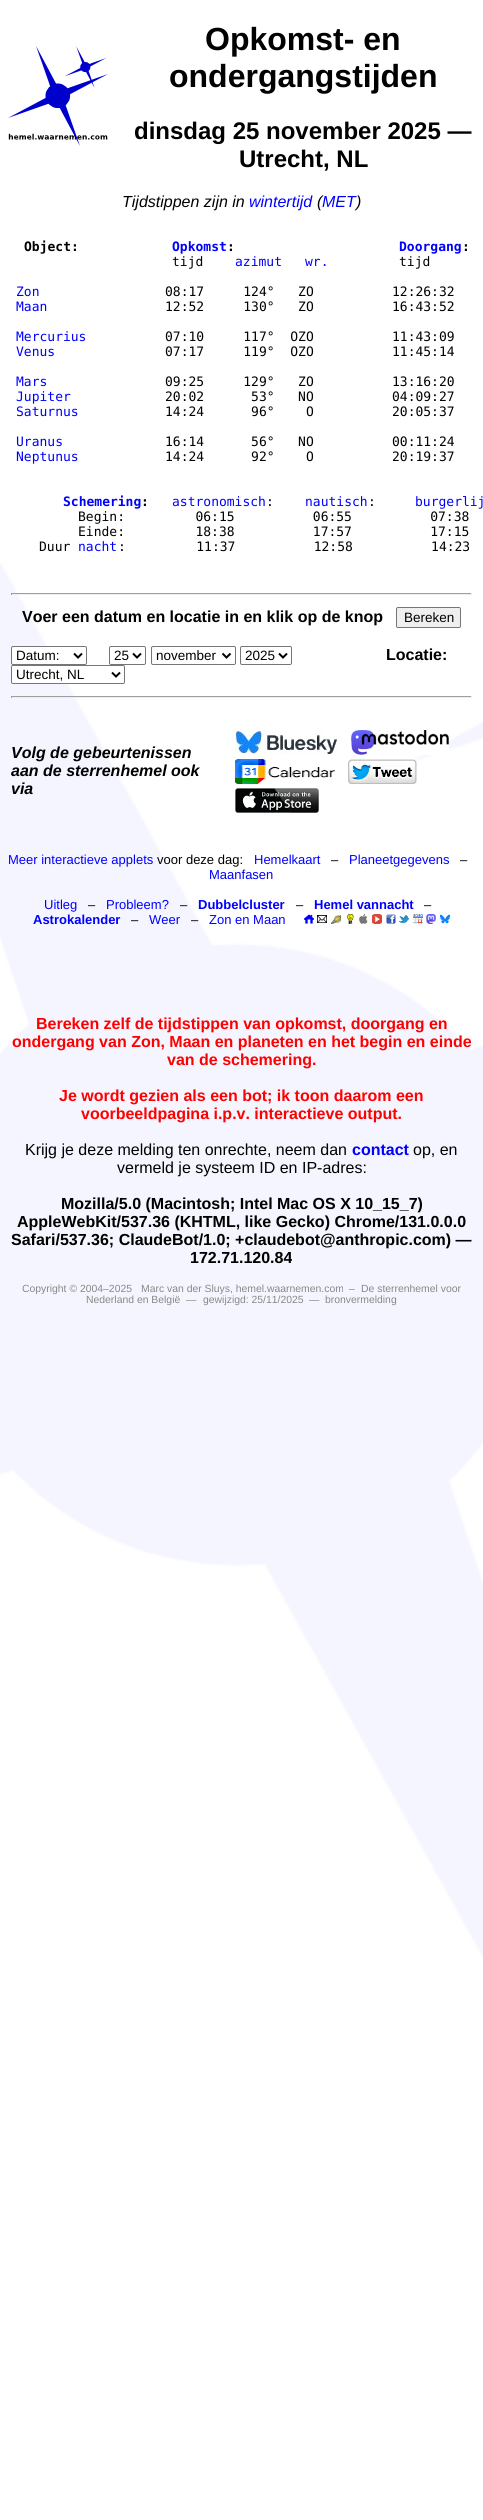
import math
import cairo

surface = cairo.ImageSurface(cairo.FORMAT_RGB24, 483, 2520)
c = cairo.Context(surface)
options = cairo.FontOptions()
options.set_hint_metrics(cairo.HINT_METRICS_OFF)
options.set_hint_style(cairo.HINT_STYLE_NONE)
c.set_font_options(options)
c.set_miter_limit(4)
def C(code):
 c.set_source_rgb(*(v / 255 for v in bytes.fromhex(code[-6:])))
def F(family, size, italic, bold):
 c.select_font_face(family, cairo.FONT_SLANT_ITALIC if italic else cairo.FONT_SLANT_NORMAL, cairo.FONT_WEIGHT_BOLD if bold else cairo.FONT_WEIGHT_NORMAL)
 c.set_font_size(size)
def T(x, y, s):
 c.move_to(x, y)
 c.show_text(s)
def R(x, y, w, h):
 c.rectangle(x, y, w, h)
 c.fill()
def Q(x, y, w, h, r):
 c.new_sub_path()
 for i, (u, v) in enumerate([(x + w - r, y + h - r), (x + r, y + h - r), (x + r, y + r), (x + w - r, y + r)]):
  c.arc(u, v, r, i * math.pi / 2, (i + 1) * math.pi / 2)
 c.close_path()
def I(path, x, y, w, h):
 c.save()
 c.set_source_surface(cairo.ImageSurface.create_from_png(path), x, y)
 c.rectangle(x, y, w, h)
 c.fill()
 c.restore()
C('ffffff')
c.paint()
I('1.png',0,563,483,1394)
I('2.png',8,46,100,100)
F('Liberation Sans',32,0,1)
C('000000')
T(205,50,'Opkomst- en')
T(169,87,'ondergangstijden')
F('Liberation Sans',24,0,1)
T(134,139,'dinsdag 25 november 2025 —')
T(239,167,'Utrecht, NL')
F('Liberation Sans',16,1,0)
T(122,207,'Tijdstippen zijn in')
C('0000ff')
T(249,207,'wintertijd')
C('000000')
T(317,207,'(')
C('0000ff')
T(322,207,'MET')
C('000000')
T(356,207,')')
F('DejaVu Sans Mono',13,0,1)
T(24,251,'Object:')
C('0000ff')
T(172,251,'Opkomst')
C('000000')
T(227,251,':')
C('0000ff')
T(399,251,'Doorgang')
C('000000')
T(462,251,':')
F('DejaVu Sans Mono',13,0,0)
T(172,266,'tijd')
C('0000ff')
T(235,266,'azimut')
T(305,266,'wr.')
C('000000')
T(399,266,'tijd')
C('0000ff')
T(16,296,'Zon')
C('000000')
T(165,296,'08:17     124°   ZO          12:26:32')
C('0000ff')
T(16,311,'Maan')
C('000000')
T(165,311,'12:52     130°   ZO          16:43:52')
C('0000ff')
T(16,341,'Mercurius')
C('000000')
T(165,341,'07:10     117°  OZO          11:43:09')
C('0000ff')
T(16,356,'Venus')
C('000000')
T(165,356,'07:17     119°  OZO          11:45:14')
C('0000ff')
T(16,386,'Mars')
C('000000')
T(165,386,'09:25     129°   ZO          13:16:20')
C('0000ff')
T(16,401,'Jupiter')
C('000000')
T(165,401,'20:02      53°   NO          04:09:27')
C('0000ff')
T(16,416,'Saturnus')
C('000000')
T(165,416,'14:24      96°    O          20:05:37')
C('0000ff')
T(16,446,'Uranus')
C('000000')
T(165,446,'16:14      56°   NO          00:11:24')
C('0000ff')
T(16,461,'Neptunus')
C('000000')
T(165,461,'14:24      92°    O          20:19:37')
F('DejaVu Sans Mono',13,0,1)
C('0000ff')
T(63,506,'Schemering')
C('000000')
T(141,506,':')
F('DejaVu Sans Mono',13,0,0)
C('0000ff')
T(172,506,'astronomisch')
C('000000')
T(266,506,':')
C('0000ff')
T(305,506,'nautisch')
C('000000')
T(368,506,':')
C('0000ff')
T(415,506,'burgerlij')
C('000000')
T(78,521,'Begin:         06:15          06:55          07:38')
T(78,536,'Einde:         18:38          17:57          17:15')
T(39,551,'Duur')
C('0000ff')
T(78,551,'nacht')
C('000000')
T(118,551,':         11:37          12:58          14:23')
C('9f9f9f')
R(11,593,461,1)
C('eeeeee')
R(471,593,1,2)
R(11,594,461,1)
C('9f9f9f')
R(11,593,1,2)
F('Liberation Sans',16,0,1)
C('000000')
T(22,622,'Voer een datum en locatie in en klik op de knop')
C('efefef')
Q(396.5,607.5,64,20,1.5)
c.fill_preserve()
C('767676')
c.set_line_width(1)
c.stroke()
F('Liberation Sans',13.5,0,0)
C('000000')
T(404,622,'Bereken')
C('ffffff')
Q(11.5,646.5,75,18,1.5)
c.fill_preserve()
C('767676')
c.stroke()
c.new_path()
c.move_to(74,653.5)
c.line_to(78,657.5)
c.line_to(82,653.5)
C('000000')
c.set_line_width(2)
c.stroke()
T(16,660,'Datum:')
Q(109.5,646.5,36,18,1.5)
C('767676')
c.set_line_width(1)
c.stroke()
c.new_path()
c.move_to(133,653.5)
c.line_to(137,657.5)
c.line_to(141,653.5)
C('000000')
c.set_line_width(2)
c.stroke()
T(114,660,'25')
Q(151.5,646.5,84,18,1.5)
C('767676')
c.set_line_width(1)
c.stroke()
c.new_path()
c.move_to(222.5,653.5)
c.line_to(226.5,657.5)
c.line_to(230.5,653.5)
C('000000')
c.set_line_width(2)
c.stroke()
T(156,660,'november')
Q(240.5,646.5,51,18,1.5)
C('767676')
c.set_line_width(1)
c.stroke()
c.new_path()
c.move_to(279,653.5)
c.line_to(283,657.5)
c.line_to(287,653.5)
C('000000')
c.set_line_width(2)
c.stroke()
T(245,660,'2025')
F('Liberation Sans',16,0,1)
T(386,660,'Locatie:')
C('ffffff')
Q(11.5,665.5,113,18,1.5)
c.fill_preserve()
C('767676')
c.set_line_width(1)
c.stroke()
c.new_path()
c.move_to(112,672.5)
c.line_to(116,676.5)
c.line_to(120,672.5)
C('000000')
c.set_line_width(2)
c.stroke()
F('Liberation Sans',13.5,0,0)
T(16,679,'Utrecht, NL')
C('9f9f9f')
R(11,696,461,1)
C('eeeeee')
R(471,696,1,2)
R(11,697,461,1)
C('9f9f9f')
R(11,696,1,2)
F('Liberation Sans',16,1,1)
C('000000')
T(11,758,'Volg de gebeurtenissen')
T(11,776,'aan de sterrenhemel ook')
T(11,794,'via')
I('3.png',235,730,103,24)
I('4.png',351,730,98,25)
I('5.png',235,759,100,25)
I('6.png',348,759,69,25)
I('7.png',235,788,84,25)
F('Liberation Sans',13,0,0)
C('0000ff')
T(8,864,'Meer interactieve applets')
C('000000')
T(157,864,'voor deze dag:')
C('0000ff')
T(254,864,'Hemelkaart')
C('000000')
T(331,864,'–')
C('0000ff')
T(349,864,'Planeetgegevens')
C('000000')
T(460,864,'–')
C('0000ff')
T(209,879,'Maanfasen')
T(44,909,'Uitleg')
C('000000')
T(88,909,'–')
C('0000ff')
T(106,909,'Probleem?')
C('000000')
T(180,909,'–')
F('Liberation Sans',13,0,1)
C('0000ff')
T(198,909,'Dubbelcluster')
F('Liberation Sans',13,0,0)
C('000000')
T(296,909,'–')
F('Liberation Sans',13,0,1)
C('0000ff')
T(314,909,'Hemel vannacht')
F('Liberation Sans',13,0,0)
C('000000')
T(424,909,'–')
F('Liberation Sans',13,0,1)
C('0000ff')
T(33,924,'Astrokalender')
F('Liberation Sans',13,0,0)
C('000000')
T(131,924,'–')
C('0000ff')
T(149,924,'Weer')
C('000000')
T(191,924,'–')
C('0000ff')
T(209,924,'Zon en Maan')
I('8.png',304,914,10,10)
I('9.png',317,915,10,8)
I('10.png',331,915,10,9)
I('11.png',347,914,7,10)
I('12.png',359,914,9,10)
I('13.png',372,914,10,10)
I('14.png',386,914,10,10)
I('15.png',399,915,10,9)
I('16.png',413,914,10,10)
I('17.png',426,914,10,10)
I('18.png',440,914,10,10)
F('Liberation Sans',16,0,1)
C('ff0000')
T(36,1029,'Bereken zelf de tijdstippen van opkomst, doorgang en')
T(12,1047,'ondergang van Zon, Maan en planeten en het begin en einde')
T(167,1065,'van de schemering.')
T(59,1101,'Je wordt gezien als een bot; ik toon daarom een')
T(81,1119,'voorbeeldpagina i.p.v. interactieve output.')
F('Liberation Sans',16,0,0)
C('000000')
T(25,1155,'Krijg je deze melding ten onrechte, neem dan')
F('Liberation Sans',16,0,1)
C('0000ff')
T(352,1155,'contact')
F('Liberation Sans',16,0,0)
C('000000')
T(413,1155,'op, en')
T(117,1173,'vermeld je systeem ID en IP-adres:')
F('Liberation Sans',16,0,1)
T(61,1209,'Mozilla/5.0 (Macintosh; Intel Mac OS X 10_15_7)')
T(17,1227,'AppleWebKit/537.36 (KHTML, like Gecko) Chrome/131.0.0.0')
T(11,1245,'Safari/537.36; ClaudeBot/1.0; +claudebot@anthropic.com) —')
T(190,1263,'172.71.120.84')
F('Liberation Sans',10.4,0,0)
C('888888')
T(22,1292,'Copyright © 2004–2025')
T(141,1292,'Marc van der Sluys, hemel.waarnemen.com')
T(349,1292,'–')
T(361,1292,'De sterrenhemel voor')
T(86,1303,'Nederland en België')
T(186,1303,'—')
T(203,1303,'gewijzigd: 25/11/2025')
T(309,1303,'—')
T(325,1303,'bronvermelding')
surface.write_to_png('o.png')
